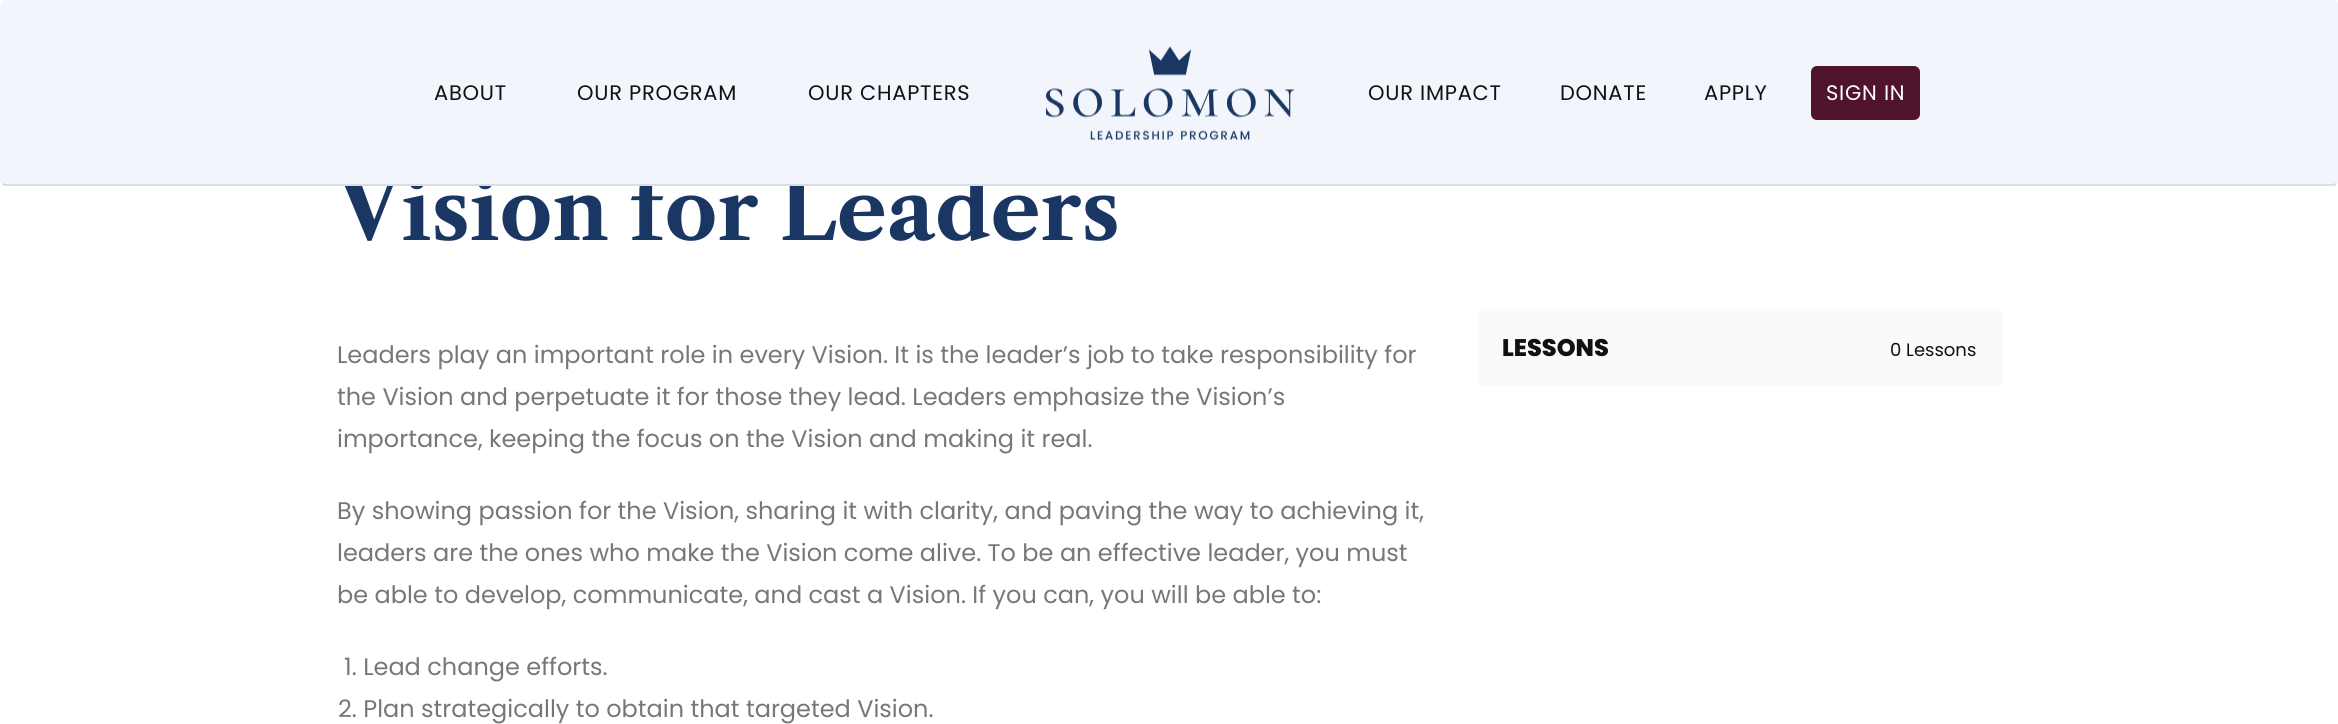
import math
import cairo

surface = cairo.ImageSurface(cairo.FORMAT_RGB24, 2338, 724)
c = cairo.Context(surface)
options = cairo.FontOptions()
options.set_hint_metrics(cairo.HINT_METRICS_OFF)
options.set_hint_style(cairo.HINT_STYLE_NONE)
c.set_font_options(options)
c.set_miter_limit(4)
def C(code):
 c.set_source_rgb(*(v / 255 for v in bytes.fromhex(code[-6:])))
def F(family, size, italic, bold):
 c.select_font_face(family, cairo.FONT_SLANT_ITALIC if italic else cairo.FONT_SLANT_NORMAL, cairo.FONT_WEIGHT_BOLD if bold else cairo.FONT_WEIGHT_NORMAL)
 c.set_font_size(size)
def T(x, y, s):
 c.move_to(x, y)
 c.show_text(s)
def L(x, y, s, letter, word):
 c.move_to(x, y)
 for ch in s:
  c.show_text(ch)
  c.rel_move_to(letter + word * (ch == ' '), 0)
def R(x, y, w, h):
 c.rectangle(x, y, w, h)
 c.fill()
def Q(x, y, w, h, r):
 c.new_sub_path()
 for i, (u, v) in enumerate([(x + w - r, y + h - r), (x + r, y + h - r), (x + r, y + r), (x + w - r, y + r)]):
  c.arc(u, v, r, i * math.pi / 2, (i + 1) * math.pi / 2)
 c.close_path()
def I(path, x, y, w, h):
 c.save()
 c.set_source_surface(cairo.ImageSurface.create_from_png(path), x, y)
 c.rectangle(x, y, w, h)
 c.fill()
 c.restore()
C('ffffff')
c.paint()
F('Libre Caslon Text',82.5,0,1)
C('1a3663')
T(337,240,'Vision for Leaders')
C('f2f5fb')
Q(0,0,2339,186,6)
c.fill()
c.new_path()
c.move_to(2336,183.5)
c.curve_to(2335,184.5,2334,185,2332.5,185)
c.line_to(6,185)
c.curve_to(4.5,185,3.5,184.5,2.5,183.5)
C('d1d5db')
c.set_line_width(1.5)
c.stroke()
F('Poppins',21,0,0)
C('111111')
L(434,100,'ABOUT',.75,0)
L(577,100,'OUR PROGRAM',.75,0)
L(808,100,'OUR CHAPTERS',.75,0)
I('1.png',1046,46,249,94)
L(1368,100,'OUR IMPACT',.75,0)
L(1560,100,'DONATE',.75,0)
L(1704,100,'APPLY',.75,0)
C('4f142c')
Q(1811,66,109,54,6)
c.fill()
C('ffffff')
L(1826,100,'SIGN IN',.75,0)
F('Poppins',24,0,0)
C('777777')
T(337,363,'Leaders play an important role in every Vision. It is the leader’s job to take responsibility for')
T(337,405,'the Vision and perpetuate it for those they lead. Leaders emphasize the Vision’s')
T(337,447,'importance, keeping the focus on the Vision and making it real.')
T(337,519,'By showing passion for the Vision, sharing it with clarity, and paving the way to achieving it,')
T(337,561,'leaders are the ones who make the Vision come alive. To be an effective leader, you must')
T(337,603,'be able to develop, communicate, and cast a Vision. If you can, you will be able to:')
T(344,675,'1. Lead change efforts.')
T(338,717,'2. Plan strategically to obtain that targeted Vision.')
C('fafafa')
R(1478,311,525,75)
F('Poppins ExtraBold',24,0,0)
C('111111')
T(1502,356,'LESSONS')
F('Poppins',18,0,0)
T(1890,356,'0 Lessons')
surface.write_to_png('o.png')
